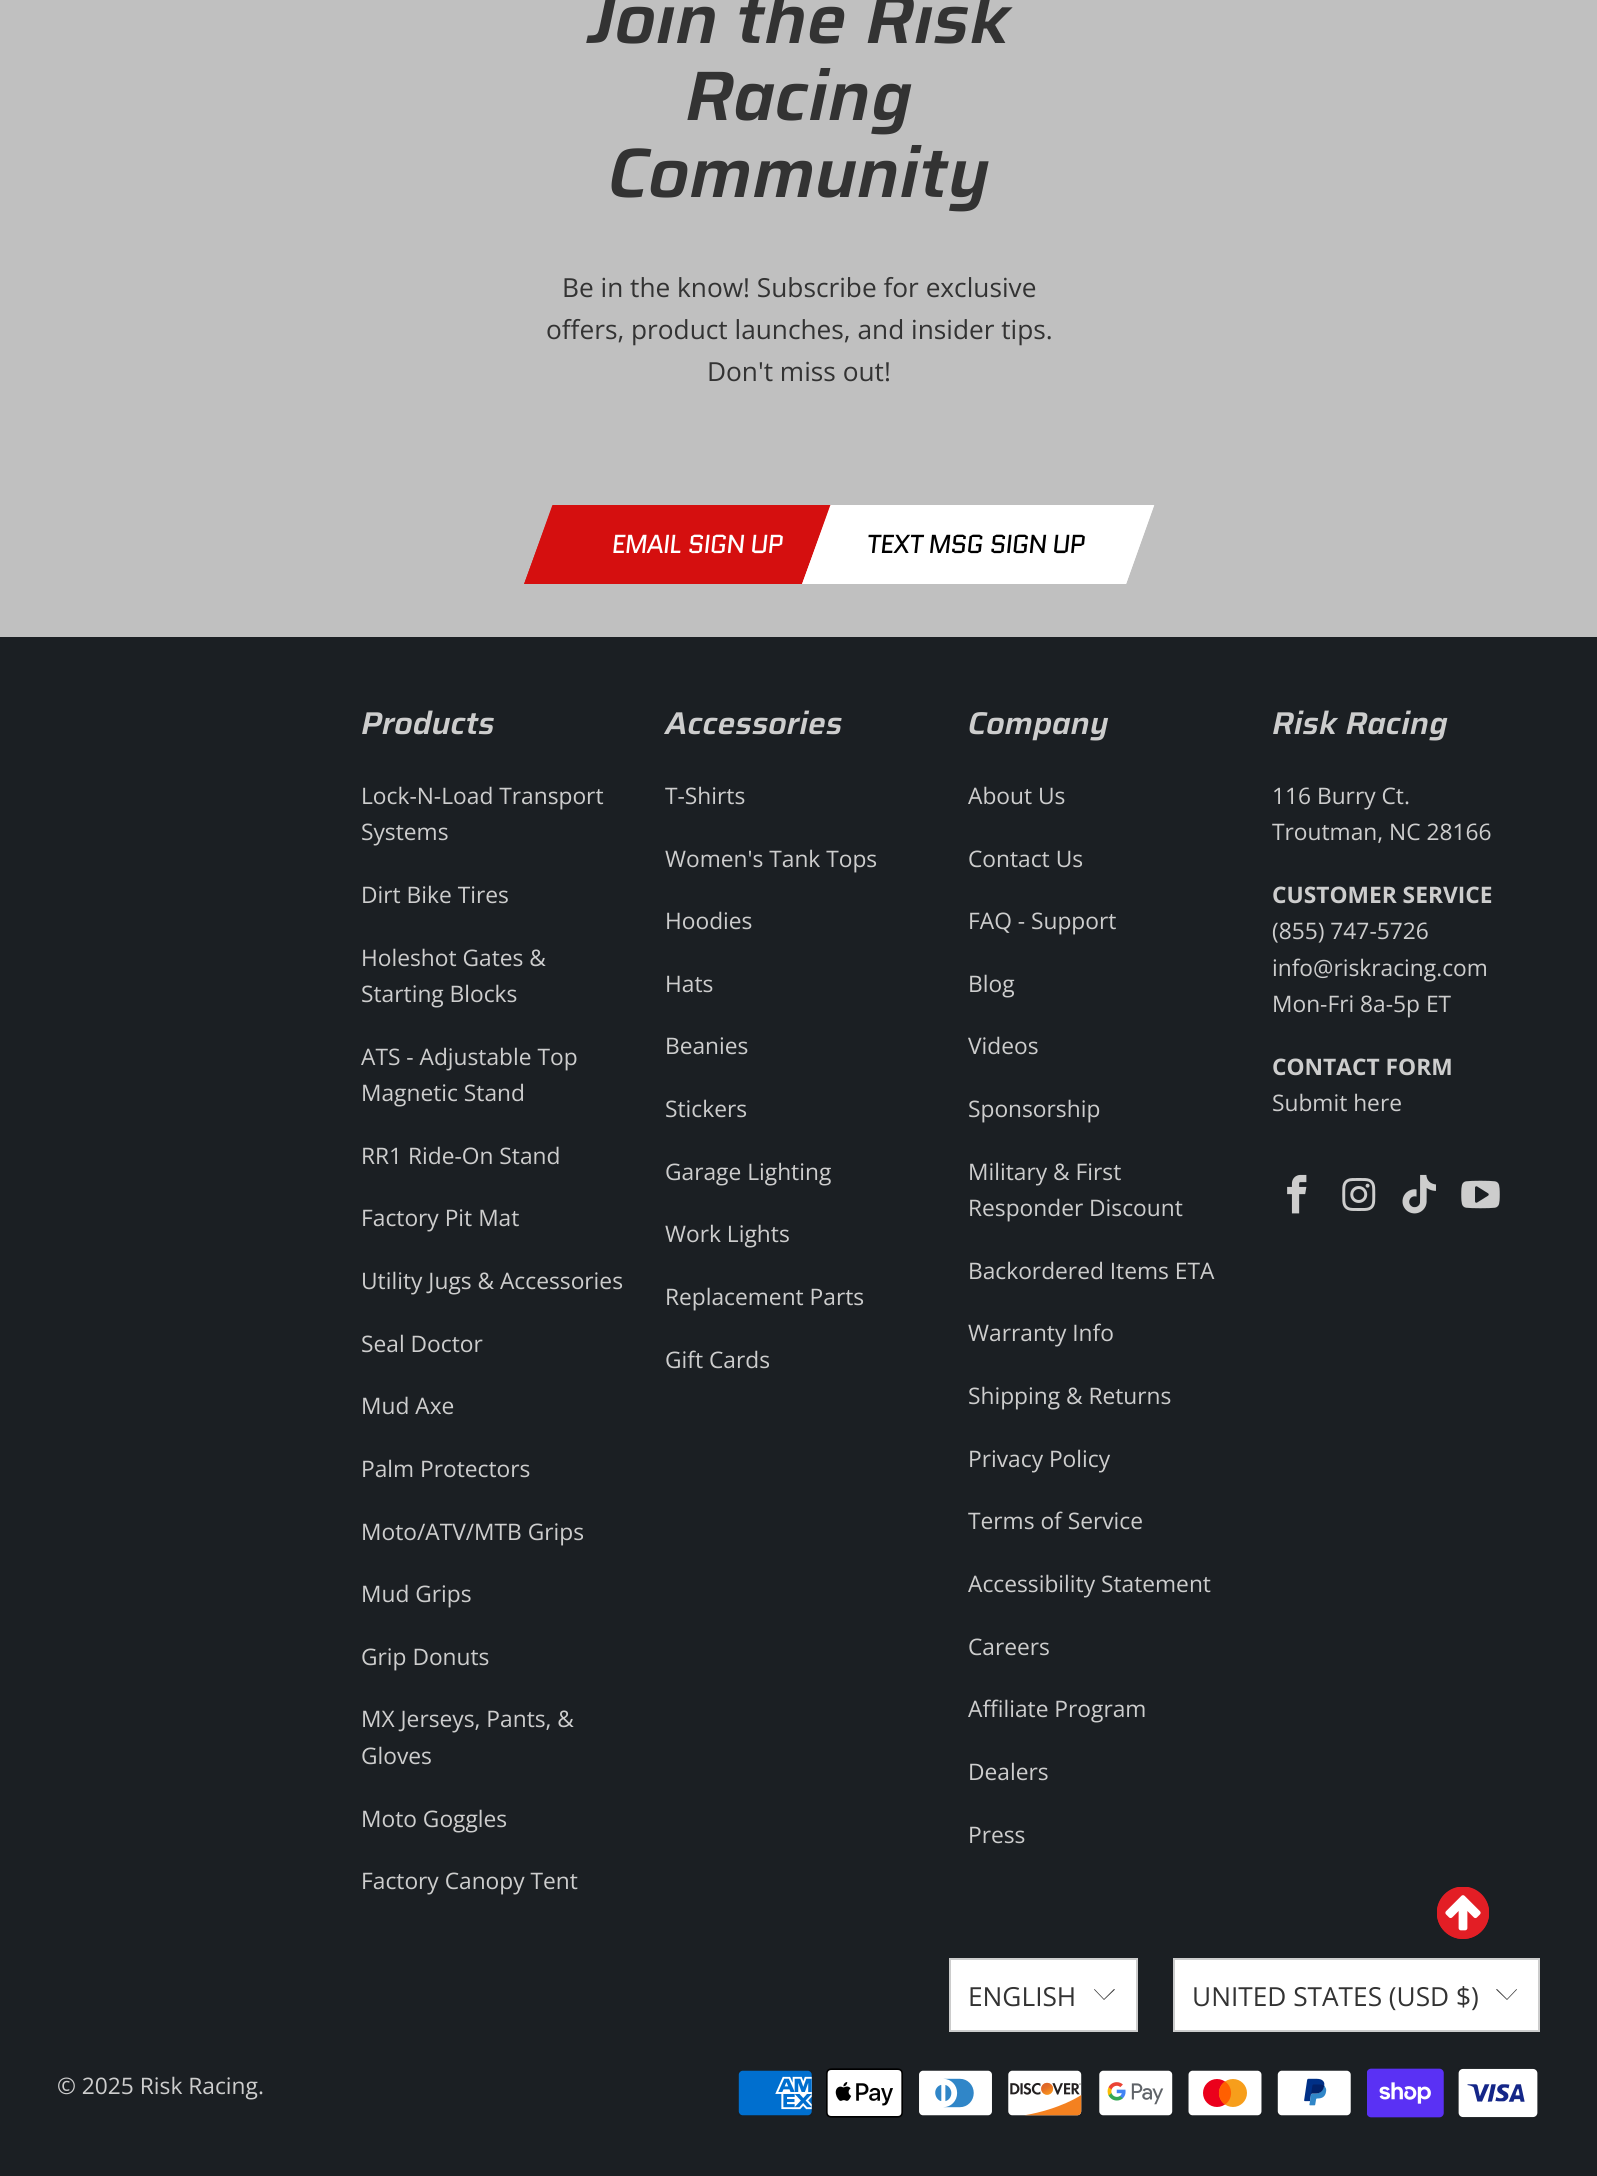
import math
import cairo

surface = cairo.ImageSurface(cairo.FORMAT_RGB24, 1597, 2176)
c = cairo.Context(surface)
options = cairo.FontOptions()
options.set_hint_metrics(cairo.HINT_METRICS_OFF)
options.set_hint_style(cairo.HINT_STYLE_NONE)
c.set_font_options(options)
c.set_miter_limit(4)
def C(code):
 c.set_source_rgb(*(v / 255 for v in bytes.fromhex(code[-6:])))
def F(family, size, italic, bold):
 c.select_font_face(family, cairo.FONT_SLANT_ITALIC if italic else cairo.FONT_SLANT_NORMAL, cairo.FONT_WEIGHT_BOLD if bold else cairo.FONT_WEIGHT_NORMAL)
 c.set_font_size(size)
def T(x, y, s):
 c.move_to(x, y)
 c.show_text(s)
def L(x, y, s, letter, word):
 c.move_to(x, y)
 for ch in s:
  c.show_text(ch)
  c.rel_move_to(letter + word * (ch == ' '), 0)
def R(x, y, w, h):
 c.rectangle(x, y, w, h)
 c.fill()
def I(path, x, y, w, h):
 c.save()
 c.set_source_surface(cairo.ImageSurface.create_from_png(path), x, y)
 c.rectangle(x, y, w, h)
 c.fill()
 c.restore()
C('1b1f23')
c.paint()
C('c0c0c0')
R(0,0,1597,637)
F('Saira SemiBold',70,1,0)
C('333333')
T(588,43,'Join the Risk')
T(685,120,'Racing')
T(608,197,'Community')
F('Open Sans',26.25,0,0)
T(562,297,'Be in the know! Subscribe for exclusive')
T(546,339,'offers, product launches, and insider tips.')
T(707,381,'Don\'t miss out!')
C('d50f0f')
c.new_path()
c.move_to(553,505)
c.line_to(876,505)
c.line_to(848,584)
c.line_to(524,584)
c.close_path()
c.fill()
c.new_path()
c.move_to(553,506)
c.line_to(875,506)
c.line_to(847.5,583)
c.line_to(525.5,583)
c.close_path()
c.set_line_width(1.8)
c.stroke()
F('Quantico',26,1,0)
C('ffffff')
L(611,553,'EMAIL',-1,0)
L(687,553,'SIGN UP',-1,0)
c.new_path()
c.move_to(831,505)
c.line_to(1154,505)
c.line_to(1126,584)
c.line_to(802,584)
c.close_path()
c.fill()
c.new_path()
c.move_to(831,506)
c.line_to(1153,506)
c.line_to(1125.5,583)
c.line_to(803.5,583)
c.close_path()
c.stroke()
C('000000')
L(866,553,'TEXT MSG',-1,0)
L(989,553,'SIGN UP',-1,0)
F('Saira SemiBold',31.5,1,0)
C('cdcdcd')
T(361,734,'Products')
F('Open Sans',22.75,0,0)
T(361,804,'Lock-N-Load Transport')
T(361,840,'Systems')
T(361,903,'Dirt Bike Tires')
T(361,966,'Holeshot Gates &')
T(361,1002,'Starting Blocks')
T(361,1065,'ATS - Adjustable Top')
T(361,1101,'Magnetic Stand')
T(361,1164,'RR1 Ride-On Stand')
T(361,1226,'Factory Pit Mat')
T(361,1289,'Utility Jugs & Accessories')
T(361,1352,'Seal Doctor')
T(361,1414,'Mud Axe')
T(361,1477,'Palm Protectors')
T(361,1540,'Moto/ATV/MTB Grips')
T(361,1602,'Mud Grips')
T(361,1665,'Grip Donuts')
T(361,1727,'MX Jerseys, Pants, &')
T(361,1764,'Gloves')
T(361,1827,'Moto Goggles')
T(361,1889,'Factory Canopy Tent')
F('Saira SemiBold',31.5,1,0)
T(665,734,'Accessories')
F('Open Sans',22.75,0,0)
T(665,804,'T-Shirts')
T(665,867,'Women\'s Tank Tops')
T(665,929,'Hoodies')
T(665,992,'Hats')
T(665,1054,'Beanies')
T(665,1117,'Stickers')
T(665,1180,'Garage Lighting')
T(665,1242,'Work Lights')
T(665,1305,'Replacement Parts')
T(665,1368,'Gift Cards')
F('Saira SemiBold',31.5,1,0)
T(968,734,'Company')
F('Open Sans',22.75,0,0)
T(968,804,'About Us')
T(968,867,'Contact Us')
T(968,929,'FAQ - Support')
T(968,992,'Blog')
T(968,1054,'Videos')
T(968,1117,'Sponsorship')
T(968,1180,'Military & First')
T(968,1216,'Responder Discount')
T(968,1279,'Backordered Items ETA')
T(968,1341,'Warranty Info')
T(968,1404,'Shipping & Returns')
T(968,1467,'Privacy Policy')
T(968,1529,'Terms of Service')
T(968,1592,'Accessibility Statement')
T(968,1655,'Careers')
T(968,1717,'Affiliate Program')
T(968,1780,'Dealers')
T(968,1843,'Press')
F('Saira SemiBold',31.5,1,0)
T(1272,734,'Risk Racing')
F('Open Sans',22.75,0,0)
T(1272,804,'116 Burry Ct.')
T(1272,840,'Troutman, NC 28166')
F('Open Sans',22.75,0,1)
T(1272,903,'CUSTOMER SERVICE')
F('Open Sans',22.75,0,0)
T(1272,939,'(855) 747-5726')
T(1272,976,'info@riskracing.com')
T(1272,1012,'Mon-Fri 8a-5p ET')
F('Open Sans',22.75,0,1)
T(1272,1075,'CONTACT FORM')
F('Open Sans',22.75,0,0)
T(1272,1111,'Submit here')
I('1.png',1287,1174,20,40)
I('2.png',1342,1178,34,33)
I('3.png',1402,1174,34,40)
I('4.png',1461,1180,39,29)
C('ffffff')
c.rectangle(950,1959,187,72)
c.fill_preserve()
C('cccccc')
c.set_line_width(2)
c.stroke()
F('Open Sans',26.25,0,0)
C('333333')
T(968,2006,'ENGLISH')
c.new_path()
c.move_to(1104,2000)
c.line_to(1094,1989.5)
c.line_to(1094.5,1989)
c.line_to(1104,1999)
c.line_to(1114,1989)
c.line_to(1115,1989.5)
c.close_path()
c.fill()
C('ffffff')
c.rectangle(1174,1959,365,72)
c.fill_preserve()
C('cccccc')
c.stroke()
C('333333')
T(1192,2006,'UNITED STATES (USD $)')
c.new_path()
c.move_to(1507,2000)
c.line_to(1496,1989.5)
c.line_to(1497,1989)
c.line_to(1507,1999)
c.line_to(1516.5,1989)
c.line_to(1517,1989.5)
c.close_path()
c.fill()
F('Open Sans',22.75,0,0)
C('cdcdcd')
T(57,2094,'© 2025 Risk Racing')
T(258,2094,'.')
I('5.png',738,2070,74,46)
I('6.png',826,2068,77,50)
I('7.png',919,2070,73,46)
I('8.png',1008,2070,74,46)
I('9.png',1099,2070,74,46)
I('10.png',1188,2070,74,46)
I('11.png',1277,2070,74,46)
I('12.png',1367,2068,77,50)
I('13.png',1458,2068,80,50)
C('e31e25')
c.arc(1463,1913,26,0,2 * math.pi)
c.fill()
I('14.png',1437,1887,52,52)
surface.write_to_png('o.png')
